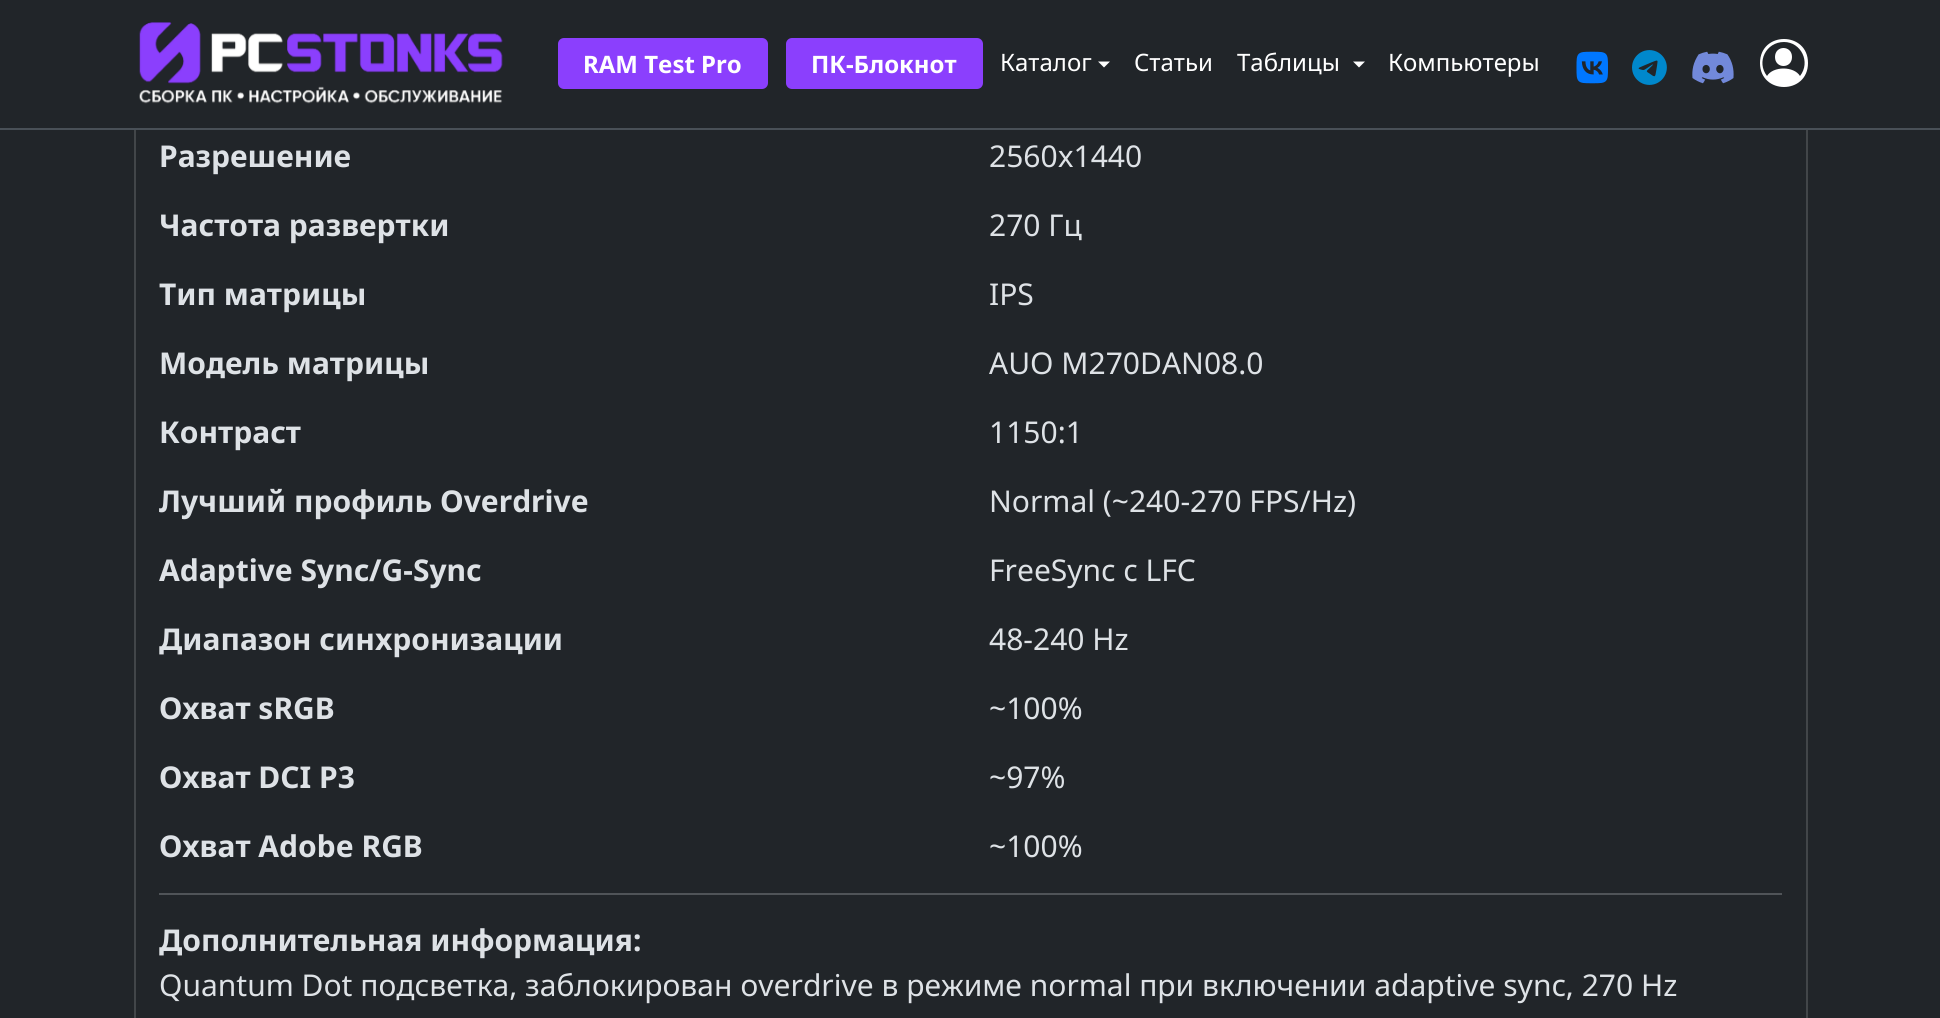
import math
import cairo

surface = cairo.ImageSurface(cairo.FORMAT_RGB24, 1940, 1018)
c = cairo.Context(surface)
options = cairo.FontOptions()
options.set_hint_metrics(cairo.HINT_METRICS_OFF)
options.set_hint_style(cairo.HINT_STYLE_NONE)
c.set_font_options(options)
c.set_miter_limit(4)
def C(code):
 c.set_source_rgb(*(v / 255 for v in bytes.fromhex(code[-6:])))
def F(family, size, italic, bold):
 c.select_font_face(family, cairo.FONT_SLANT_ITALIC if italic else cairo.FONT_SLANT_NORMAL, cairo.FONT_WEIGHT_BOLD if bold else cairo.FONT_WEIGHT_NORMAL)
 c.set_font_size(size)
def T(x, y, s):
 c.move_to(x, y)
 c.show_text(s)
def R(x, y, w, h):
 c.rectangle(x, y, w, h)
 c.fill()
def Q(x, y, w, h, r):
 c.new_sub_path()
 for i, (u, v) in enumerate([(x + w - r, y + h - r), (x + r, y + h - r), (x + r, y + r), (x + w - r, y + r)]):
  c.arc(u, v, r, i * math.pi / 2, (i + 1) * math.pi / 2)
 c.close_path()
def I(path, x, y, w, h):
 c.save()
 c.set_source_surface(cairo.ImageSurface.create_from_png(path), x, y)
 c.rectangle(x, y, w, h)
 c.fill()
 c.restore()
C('212529')
c.paint()
c.rectangle(135,40,1672,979)
C('424649')
c.stroke()
C('212529')
R(134,39,1674,89)
C('495057')
R(0,128,1940,2)
I('1.png',139,22,364,82)
C('8b3ffd')
Q(558,38,210,51,6)
c.fill()
F('Noto Sans',24,0,1)
C('ffffff')
T(583,73,'RAM Test Pro')
C('8b3ffd')
Q(786,38,197,51,6)
c.fill()
C('ffffff')
T(811,73,'ПК-Блокнот')
F('Noto Sans',24,0,0)
T(1000,71,'Каталог')
c.new_path()
c.move_to(1098,61.5)
c.line_to(1110,61.5)
c.line_to(1104,67.5)
c.close_path()
c.fill()
T(1134,71,'Статьи')
T(1237,71,'Таблицы')
c.new_path()
c.move_to(1353,61.5)
c.line_to(1365,61.5)
c.line_to(1359,67.5)
c.close_path()
c.fill()
T(1388,71,'Компьютеры')
I('2.png',1576,51,32,33)
I('3.png',1632,50,35,35)
I('4.png',1692,51,42,33)
c.new_path()
c.move_to(1792,57)
c.curve_to(1792,69,1775,69,1775,57)
c.curve_to(1775,45,1792,45,1792,57)
c.close_path()
c.move_to(1760,63)
c.curve_to(1760,31,1808,31,1808,63)
c.curve_to(1808,95,1760,95,1760,63)
c.close_path()
c.move_to(1784,42)
c.curve_to(1766,42,1756,62,1767,76)
c.curve_to(1773,66,1794,66,1800,76)
c.curve_to(1811,62,1801,42,1784,42)
c.close_path()
c.fill()
F('Noto Sans',30,0,1)
C('dee2e6')
T(159,167,'Разрешение')
F('Noto Sans',30,0,0)
T(989,167,'2560x1440')
F('Noto Sans',30,0,1)
T(159,236,'Частота развертки')
F('Noto Sans',30,0,0)
T(989,236,'270 Гц')
F('Noto Sans',30,0,1)
T(159,305,'Тип матрицы')
F('Noto Sans',30,0,0)
T(989,305,'IPS')
F('Noto Sans',30,0,1)
T(159,374,'Модель матрицы')
F('Noto Sans',30,0,0)
T(989,374,'AUO M270DAN08.0')
F('Noto Sans',30,0,1)
T(159,443,'Контраст')
F('Noto Sans',30,0,0)
T(989,443,'1150:1')
F('Noto Sans',30,0,1)
T(159,512,'Лучший профиль Overdrive')
F('Noto Sans',30,0,0)
T(989,512,'Normal (~240-270 FPS/Hz)')
F('Noto Sans',30,0,1)
T(159,581,'Adaptive Sync/G-Sync')
F('Noto Sans',30,0,0)
T(989,581,'FreeSync c LFC')
F('Noto Sans',30,0,1)
T(159,650,'Диапазон синхронизации')
F('Noto Sans',30,0,0)
T(989,650,'48-240 Hz')
F('Noto Sans',30,0,1)
T(159,719,'Охват sRGB')
F('Noto Sans',30,0,0)
T(989,719,'~100%')
F('Noto Sans',30,0,1)
T(159,788,'Охват DCI P3')
F('Noto Sans',30,0,0)
T(989,788,'~97%')
F('Noto Sans',30,0,1)
T(159,857,'Охват Adobe RGB')
F('Noto Sans',30,0,0)
T(989,857,'~100%')
C('505458')
R(159,893,1623,2)
F('Noto Sans',30,0,1)
C('dee2e6')
T(159,951,'Дополнительная информация:')
F('Noto Sans',30,0,0)
T(159,996,'Quantum Dot подсветка, заблокирован overdrive в режиме normal при включении adaptive sync, 270 Hz')
surface.write_to_png('o.png')
